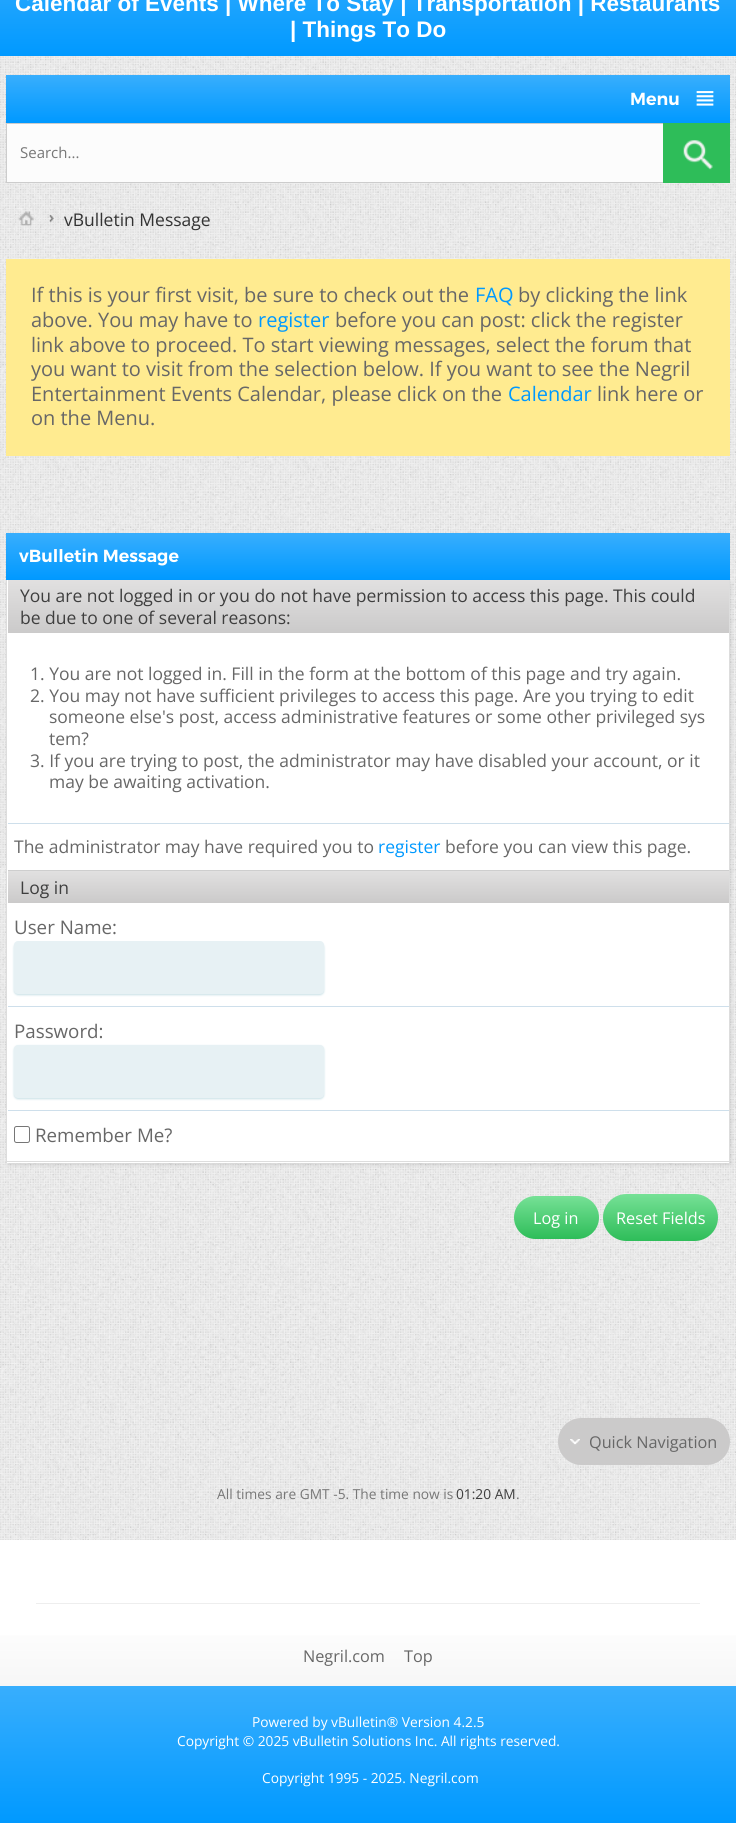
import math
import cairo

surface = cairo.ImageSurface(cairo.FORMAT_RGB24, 736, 1823)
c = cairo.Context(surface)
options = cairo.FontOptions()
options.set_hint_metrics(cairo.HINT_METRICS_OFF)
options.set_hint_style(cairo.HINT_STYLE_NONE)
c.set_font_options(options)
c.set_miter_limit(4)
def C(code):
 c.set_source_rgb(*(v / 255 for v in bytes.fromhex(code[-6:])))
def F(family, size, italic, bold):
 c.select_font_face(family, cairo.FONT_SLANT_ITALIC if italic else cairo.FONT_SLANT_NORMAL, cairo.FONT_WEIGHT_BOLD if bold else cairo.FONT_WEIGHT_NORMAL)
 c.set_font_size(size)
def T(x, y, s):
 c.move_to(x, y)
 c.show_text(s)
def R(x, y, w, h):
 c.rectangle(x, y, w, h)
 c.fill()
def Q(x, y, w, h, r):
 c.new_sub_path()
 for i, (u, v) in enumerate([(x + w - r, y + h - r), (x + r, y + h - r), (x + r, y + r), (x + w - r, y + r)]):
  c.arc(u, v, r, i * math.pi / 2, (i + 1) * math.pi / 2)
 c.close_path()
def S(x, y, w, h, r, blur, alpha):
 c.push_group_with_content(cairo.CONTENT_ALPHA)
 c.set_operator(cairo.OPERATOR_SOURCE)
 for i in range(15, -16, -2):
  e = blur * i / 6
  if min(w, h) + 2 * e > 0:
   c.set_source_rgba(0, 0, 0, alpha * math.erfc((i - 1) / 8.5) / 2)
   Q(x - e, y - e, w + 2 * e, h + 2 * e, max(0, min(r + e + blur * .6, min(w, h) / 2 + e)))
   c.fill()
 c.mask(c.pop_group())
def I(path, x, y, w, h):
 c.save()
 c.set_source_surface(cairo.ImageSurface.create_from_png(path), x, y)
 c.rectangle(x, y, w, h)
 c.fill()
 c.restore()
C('ffffff')
c.paint()
I('1.png',0,56,736,1484)
gradient = cairo.LinearGradient(368,56,368,-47)
gradient.add_color_stop_rgba(0,0,0.6,1,1)
gradient.add_color_stop_rgba(1,0.22,0.682,0.992,1)
c.set_source(gradient)
R(0,0,736,56)
F('Liberation Sans',22.5,0,1)
C('ffffff')
T(15,11,'Calendar of Events | Where To Stay | Transportation | Restaurants')
T(290,37,'| Things To Do')
gradient = cairo.LinearGradient(368,123,368,75)
gradient.add_color_stop_rgba(0,0,0.6,1,1)
gradient.add_color_stop_rgba(1,0.22,0.682,0.992,1)
c.set_source(gradient)
R(6,75,724,48)
F('Montserrat SemiBold',17.5,0,0)
C('ffffff')
T(630,105,'Menu')
I('2.png',696,91,18,15)
C('fcfcfc')
R(7,124,656,58)
c.rectangle(6.5,123.5,709,59)
C('cccccc')
c.set_line_width(1)
c.stroke()
F('Open Sans',15,0,0)
C('777777')
T(20,158,'Search...')
C('2ebd59')
R(663,123,67,60)
I('3.png',683,140,30,30)
I('4.png',49,215,5,7)
I('5.png',18,211,16,15)
F('Open Sans',17.5,0,0)
C('333333')
T(64,226,'vBulletin Message')
C('ffeb90')
R(6,259,724,197)
F('Open Sans',20,0,0)
C('676767')
T(31,302,'If this is your first visit, be sure to check out the')
C('0099ff')
T(475,302,'FAQ')
C('676767')
T(518,302,'by clicking the link')
T(31,327,'above. You may have to')
C('0099ff')
T(258,327,'register')
C('676767')
T(335,327,'before you can post: click the register')
T(31,352,'link above to proceed. To start viewing messages, select the forum that')
T(31,376,'you want to visit from the selection below. If you want to see the Negril')
T(31,401,'Entertainment Events Calendar, please click on the')
C('0099ff')
T(508,401,'Calendar')
C('676767')
T(597,401,'link here or')
T(31,425,'on the Menu.')
gradient = cairo.LinearGradient(368,580,368,533)
gradient.add_color_stop_rgba(0,0,0.6,1,1)
gradient.add_color_stop_rgba(1,0.22,0.682,0.992,1)
c.set_source(gradient)
R(6,533,724,47)
F('Montserrat SemiBold',17.5,0,0)
C('ffffff')
T(19,562,'vBulletin Message')
C('000000')
S(8,583,723,582,0,2,.1)
C('ffffff')
R(7,580,722,583)
C('dddddd')
R(729,580,1,583)
R(6,1161,724,1)
R(6,580,1,583)
gradient = cairo.LinearGradient(368,633,368,580)
gradient.add_color_stop_rgba(0,0.796,0.792,0.792,1)
gradient.add_color_stop_rgba(.99,0.882,0.878,0.878,1)
c.set_source(gradient)
R(8,580,721,53)
F('Open Sans',17.5,0,0)
C('3e3e3e')
T(20,602,'You are not logged in or you do not have permission to access this page. This could')
T(20,624,'be due to one of several reasons:')
C('676767')
T(30,680,'1. You are not logged in. Fill in the form at the bottom of this page and try again.')
T(30,702,'2. You may not have sufficient privileges to access this page. Are you trying to edit')
T(49,723,'someone else\'s post, access administrative features or some other privileged sys')
T(49,745,'tem?')
T(30,767,'3. If you are trying to post, the administrator may have disabled your account, or it')
T(49,788,'may be awaiting activation.')
C('cedfeb')
R(8,823,721,1)
C('676767')
T(14,853,'The administrator may have required you to')
C('0099ff')
T(378,853,'register')
C('676767')
T(445,853,'before you can view this page.')
gradient = cairo.LinearGradient(368,903,368,871)
gradient.add_color_stop_rgba(0,0.796,0.792,0.792,1)
gradient.add_color_stop_rgba(.99,0.882,0.878,0.878,1)
c.set_source(gradient)
R(8,871,721,32)
C('cecece')
R(8,870,721,1)
C('3e3e3e')
T(20,894,'Log in')
F('Open Sans',18.75,0,0)
C('676767')
T(14,934,'User Name:')
C('c8e0e6')
S(14,943,310,52,4,1,1)
C('e7f1f4')
Q(14,941,310,53,4)
c.fill()
C('cedfeb')
R(8,1006,721,1)
C('676767')
T(14,1038,'Password:')
C('c8e0e6')
S(14,1046,310,53,4,1,1)
C('e7f1f4')
Q(14,1045,310,53,4)
c.fill()
C('cedfeb')
R(8,1110,721,1)
Q(14.5,1126.5,15,16,2)
C('767676')
c.stroke()
C('676767')
T(35,1142,'Remember Me?')
gradient = cairo.LinearGradient(556,1239,556,1196)
gradient.add_color_stop_rgba(0,0.18,0.741,0.349,1)
gradient.add_color_stop_rgba(1,0.463,0.882,0.588,1)
c.set_source(gradient)
Q(514,1196,85,43,21.5)
c.fill()
F('Open Sans',16.25,0,0)
C('ffffff')
T(533,1224,'Log in')
gradient = cairo.LinearGradient(660,1241,660,1194)
gradient.add_color_stop_rgba(0,0.18,0.741,0.349,1)
gradient.add_color_stop_rgba(1,0.463,0.882,0.588,1)
c.set_source(gradient)
Q(603,1194,115,47,23.5)
c.fill()
C('ffffff')
T(616,1224,'Reset Fields')
C('cbcaca')
Q(558,1418,172,47,23.5)
c.fill()
I('6.png',570,1439,10,6)
C('676767')
T(589,1448,'Quick Navigation')
F('Open Sans',13.75,0,0)
C('777777')
T(217,1499,'All times are GMT -5. The time now is')
C('3e3e3e')
T(456,1499,'01:20 AM')
C('777777')
T(516,1499,'.')
gradient = cairo.LinearGradient(368,1686,368,1540)
gradient.add_color_stop_rgba(0,0.965,0.965,0.965,1)
gradient.add_color_stop_rgba(.48,1,1,1,1)
c.set_source(gradient)
R(0,1635,736,51)
C('eeeeee')
R(36,1603,664,1)
F('Open Sans',16.25,0,0)
C('676767')
T(303,1662,'Negril.com')
T(404,1662,'Top')
gradient = cairo.LinearGradient(368,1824,368,1686)
gradient.add_color_stop_rgba(0,0,0.6,1,1)
gradient.add_color_stop_rgba(1,0.22,0.682,0.992,1)
c.set_source(gradient)
R(0,1686,736,137)
F('Open Sans',13.75,0,0)
C('ffffff')
T(252,1727,'Powered by vBulletin® Version 4.2.5')
T(177,1746,'Copyright © 2025 vBulletin Solutions Inc. All rights reserved.')
T(262,1783,'Copyright 1995 - 2025. Negril.com')
surface.write_to_png('o.png')
